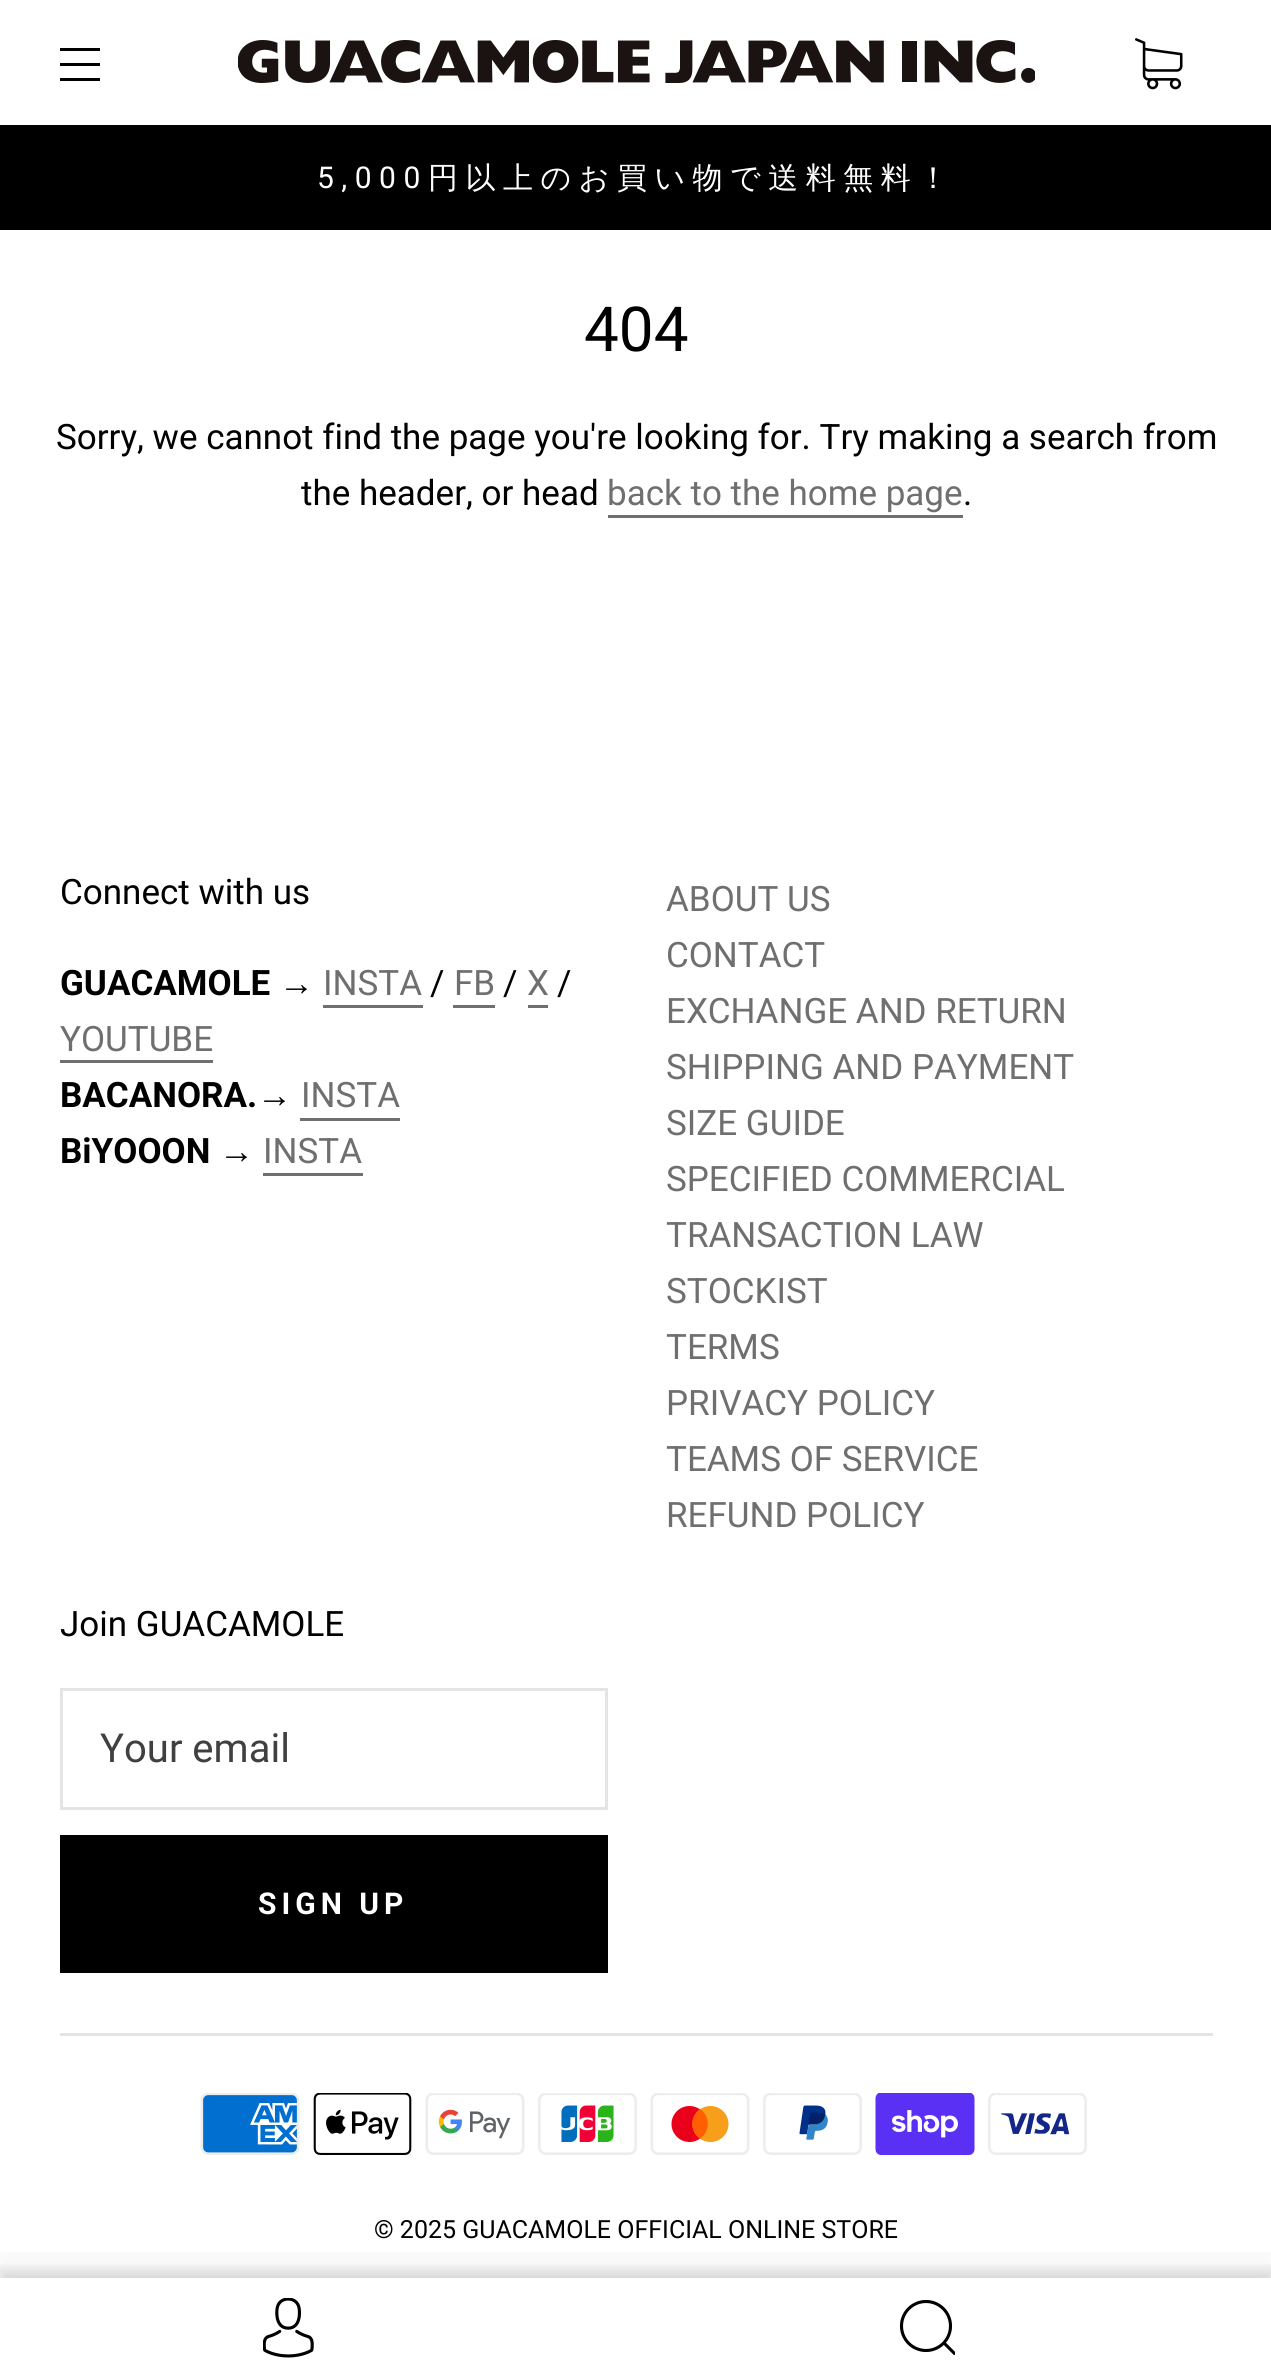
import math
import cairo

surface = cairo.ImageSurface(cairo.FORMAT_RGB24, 1271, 2377)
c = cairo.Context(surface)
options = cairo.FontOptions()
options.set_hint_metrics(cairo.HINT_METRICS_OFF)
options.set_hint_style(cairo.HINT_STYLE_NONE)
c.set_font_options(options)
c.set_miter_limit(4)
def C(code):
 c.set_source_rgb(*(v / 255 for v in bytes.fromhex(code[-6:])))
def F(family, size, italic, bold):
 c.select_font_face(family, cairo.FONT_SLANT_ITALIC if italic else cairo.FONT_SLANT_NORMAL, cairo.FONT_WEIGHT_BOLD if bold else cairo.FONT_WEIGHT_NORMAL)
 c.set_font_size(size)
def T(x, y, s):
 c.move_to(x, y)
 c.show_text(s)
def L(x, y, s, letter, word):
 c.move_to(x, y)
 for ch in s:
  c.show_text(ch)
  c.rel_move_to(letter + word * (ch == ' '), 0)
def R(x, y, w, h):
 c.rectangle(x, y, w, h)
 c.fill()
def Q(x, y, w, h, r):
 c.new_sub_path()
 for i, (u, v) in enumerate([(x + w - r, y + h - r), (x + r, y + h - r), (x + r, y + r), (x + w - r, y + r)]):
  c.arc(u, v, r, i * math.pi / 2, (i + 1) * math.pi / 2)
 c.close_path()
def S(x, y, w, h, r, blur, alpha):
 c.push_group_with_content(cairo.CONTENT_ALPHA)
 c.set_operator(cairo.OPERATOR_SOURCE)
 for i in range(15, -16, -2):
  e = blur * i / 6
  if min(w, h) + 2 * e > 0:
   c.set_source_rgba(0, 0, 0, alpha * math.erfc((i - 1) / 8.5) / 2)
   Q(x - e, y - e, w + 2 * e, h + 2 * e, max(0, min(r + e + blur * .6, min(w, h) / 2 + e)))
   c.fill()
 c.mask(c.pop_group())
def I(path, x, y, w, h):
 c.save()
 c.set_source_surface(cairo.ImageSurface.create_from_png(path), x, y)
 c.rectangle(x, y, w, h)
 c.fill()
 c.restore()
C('ffffff')
c.paint()
C('000000')
R(60,48,40,3)
R(60,63,40,3)
R(60,78,40,3)
I('1.png',238,40,797,43)
I('2.png',1135,38,48,52)
R(0,125,1271,105)
F('Roboto',30,0,0)
C('ffffff')
L(317,188,'5,000',7.5,0)
F('WenQuanYi Zen Hei Medium',30,0,0)
L(428,188,'円以上のお買い物で送料無料！',7.5,0)
F('Roboto',62,0,0)
C('000000')
T(584,351,'404')
F('Roboto',35,0,0)
T(56,449,'Sorry, we cannot find the page you\'re looking for. Try making a search from')
T(301,505,'the header, or head')
C('6f6f6f')
T(607,505,'back to the home page')
R(608,515,355,3)
C('000000')
T(963,505,'.')
T(60,904,'Connect with us')
F('Roboto',35,0,1)
T(60,995,'GUACAMOLE')
F('Liberation Sans',35,0,0)
T(279,995,'→')
F('Roboto',35,0,0)
C('6f6f6f')
T(323,995,'INSTA')
R(323,1005,100,3)
C('000000')
T(430,995,'/')
C('6f6f6f')
T(454,995,'FB')
R(453,1005,42,3)
C('000000')
T(503,995,'/')
C('6f6f6f')
T(527,995,'X')
R(528,1005,20,3)
C('000000')
T(557,995,'/')
C('6f6f6f')
T(60,1051,'YOUTUBE')
R(60,1060,153,3)
F('Roboto',35,0,1)
C('000000')
T(60,1107,'BACANORA.')
F('Liberation Sans',35,0,0)
T(257,1107,'→')
F('Roboto',35,0,0)
C('6f6f6f')
T(301,1107,'INSTA')
R(300,1118,100,3)
F('Roboto',35,0,1)
C('000000')
T(60,1163,'BiYOOON')
F('Liberation Sans',35,0,0)
T(219,1163,'→')
F('Roboto',35,0,0)
C('6f6f6f')
T(263,1163,'INSTA')
R(263,1173,100,3)
T(666,911,'ABOUT US')
T(666,967,'CONTACT')
T(666,1023,'EXCHANGE AND RETURN')
T(666,1079,'SHIPPING AND PAYMENT')
T(666,1135,'SIZE GUIDE')
T(666,1191,'SPECIFIED COMMERCIAL')
T(666,1247,'TRANSACTION LAW')
T(666,1303,'STOCKIST')
T(666,1359,'TERMS')
T(666,1415,'PRIVACY POLICY')
T(666,1471,'TEAMS OF SERVICE')
T(666,1527,'REFUND POLICY')
C('000000')
T(60,1636,'Join GUACAMOLE')
c.rectangle(61.5,1689.5,545,119)
C('e4e4e4')
c.set_line_width(3)
c.stroke()
F('Roboto',40,0,0)
C('404040')
T(100,1762,'Your email')
C('000000')
R(60,1835,548,138)
F('Roboto',30,0,1)
C('ffffff')
L(258,1914,'SIGN UP',5,0)
c.save()
c.rectangle(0,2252,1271,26)
c.clip()
C('000000')
S(0,2263,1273,100,0,25,.06)
c.restore()
c.save()
c.rectangle(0,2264,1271,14)
c.clip()
C('000000')
S(0,2270,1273,100,0,6,.12)
c.restore()
I('3.png',263,2298,51,60)
c.arc(926,2326,24.5,0,2 * math.pi)
C('000000')
c.set_line_width(3.1)
c.stroke()
c.save()
c.rectangle(900,2300,55,55)
c.clip()
c.new_path()
c.move_to(943.5,2342.5)
c.line_to(961,2360)
c.stroke()
c.restore()
C('e4e4e4')
R(60,2033,1153,3)
I('4.png',200,2093,100,62)
I('5.png',313,2093,99,62)
I('6.png',425,2093,100,62)
I('7.png',538,2093,99,62)
I('8.png',650,2093,100,62)
I('9.png',763,2093,99,62)
I('10.png',875,2093,100,62)
I('11.png',988,2093,99,62)
F('Roboto',25,0,0)
C('000000')
T(374,2238,'© 2025 GUACAMOLE OFFICIAL ONLINE STORE')
surface.write_to_png('o.png')
